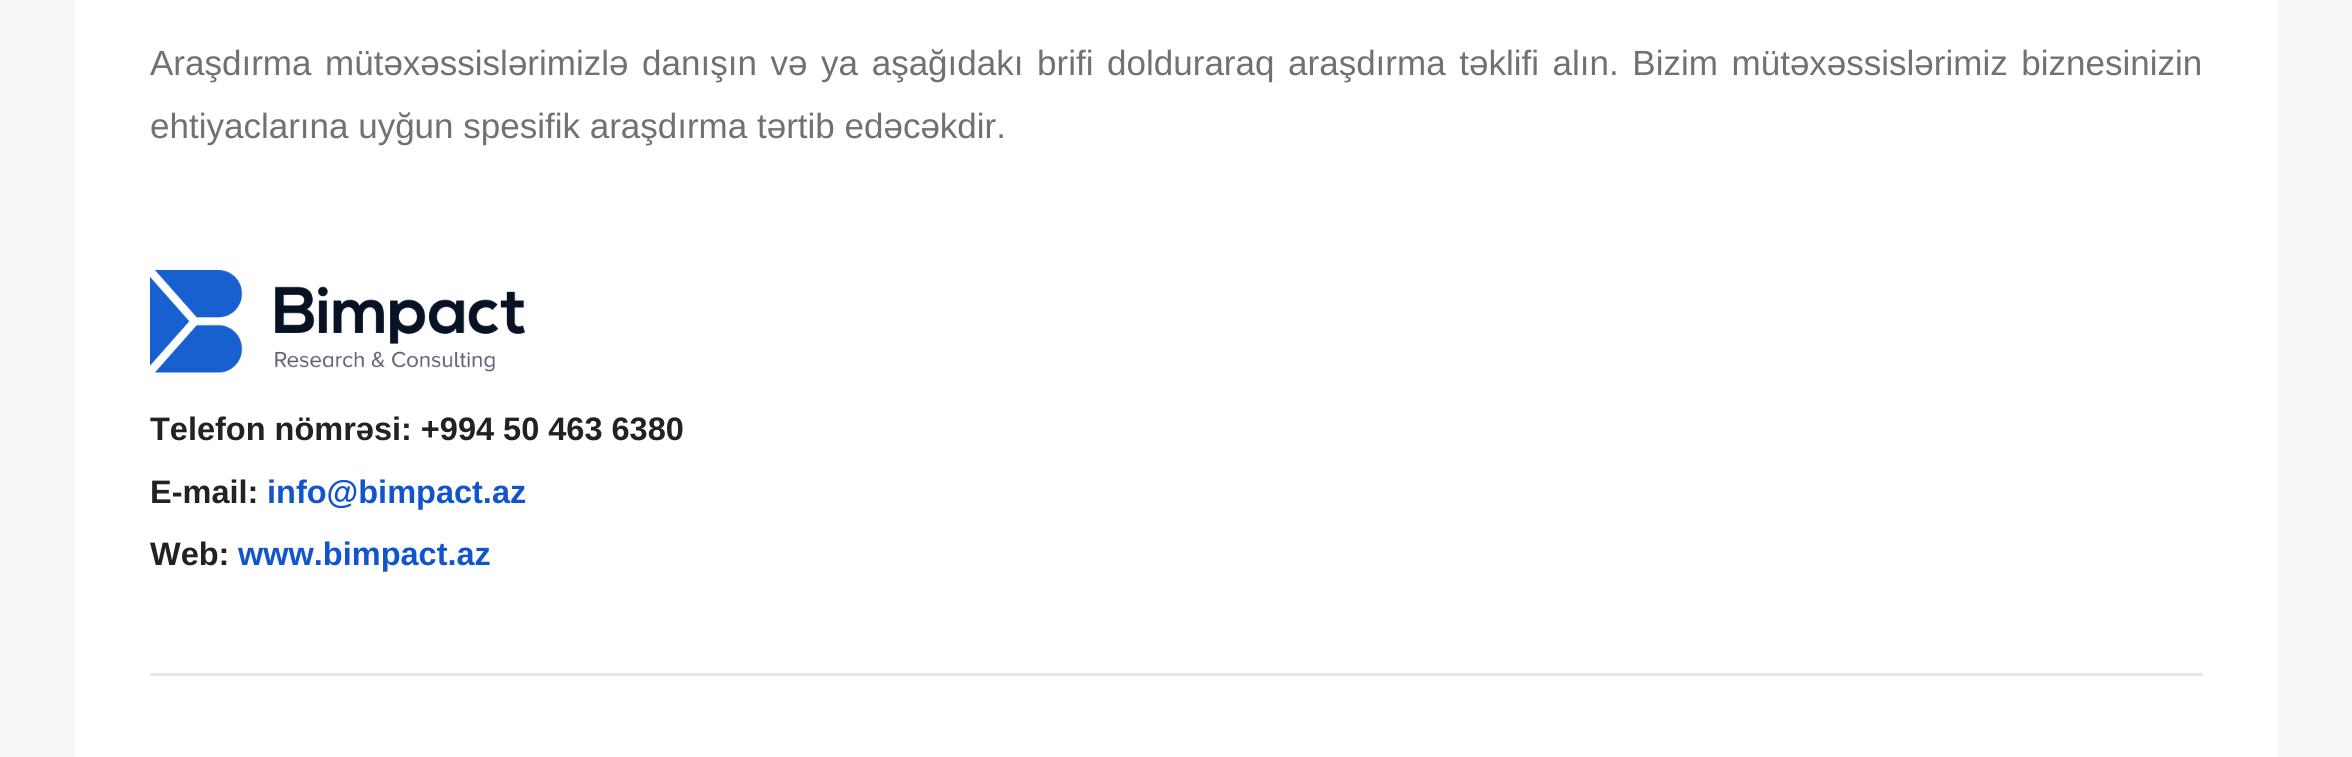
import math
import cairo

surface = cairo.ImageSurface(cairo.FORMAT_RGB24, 2352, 757)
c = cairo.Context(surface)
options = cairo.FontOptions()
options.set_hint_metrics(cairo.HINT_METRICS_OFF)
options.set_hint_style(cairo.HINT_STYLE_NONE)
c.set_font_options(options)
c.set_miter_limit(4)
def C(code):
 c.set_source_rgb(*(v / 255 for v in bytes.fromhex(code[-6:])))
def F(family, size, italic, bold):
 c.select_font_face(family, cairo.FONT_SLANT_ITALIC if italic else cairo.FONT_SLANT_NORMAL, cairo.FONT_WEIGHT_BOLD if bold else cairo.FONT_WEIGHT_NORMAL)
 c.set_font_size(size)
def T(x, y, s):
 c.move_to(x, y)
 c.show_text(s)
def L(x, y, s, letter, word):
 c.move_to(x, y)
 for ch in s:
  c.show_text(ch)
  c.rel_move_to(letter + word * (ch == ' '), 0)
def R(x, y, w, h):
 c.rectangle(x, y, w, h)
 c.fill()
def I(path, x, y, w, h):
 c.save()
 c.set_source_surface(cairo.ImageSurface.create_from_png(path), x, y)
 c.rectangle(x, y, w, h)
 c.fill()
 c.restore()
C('f5f6f8')
c.paint()
C('ffffff')
R(75,0,2203,757)
F('Liberation Sans',35,0,0)
C('717171')
L(150,75,'Araşdırma mütəxəssislərimizlə danışın və ya aşağıdakı brifi dolduraraq araşdırma təklifi alın. Bizim mütəxəssislərimiz biznesinizin',0,3.9)
T(150,138,'ehtiyaclarına uyğun spesifik araşdırma tərtib edəcəkdir.')
I('1.png',150,270,375,103)
F('Liberation Sans',32.5,0,1)
C('222222')
T(150,440,'Telefon nömrəsi: +994 50 463 6380')
T(150,503,'E-mail:')
C('1155cc')
T(267,503,'info@bimpact.az')
C('222222')
T(150,565,'Web:')
C('1155cc')
T(238,565,'www.bimpact.az')
C('e6e6e6')
R(150,673,2053,3)
surface.write_to_png('o.png')
